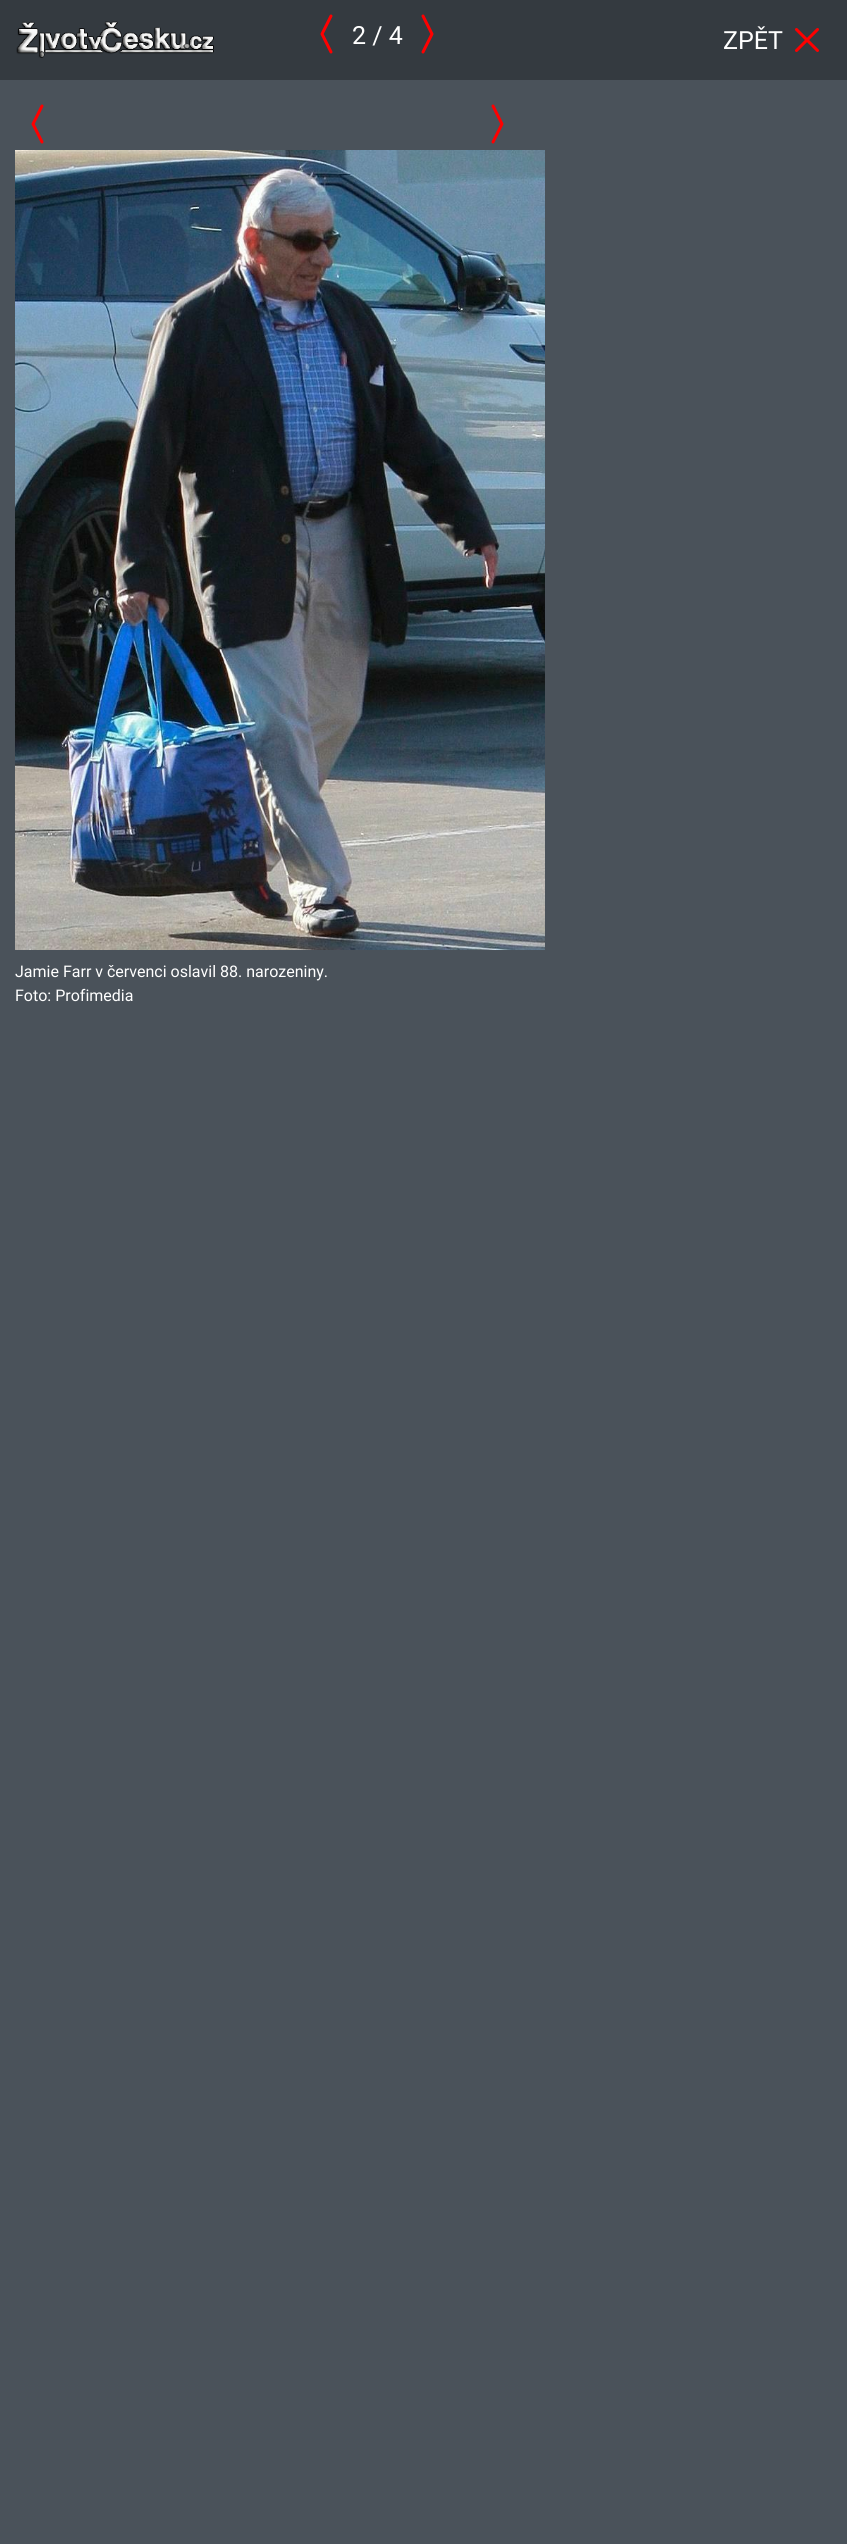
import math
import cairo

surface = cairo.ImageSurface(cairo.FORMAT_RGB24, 847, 2544)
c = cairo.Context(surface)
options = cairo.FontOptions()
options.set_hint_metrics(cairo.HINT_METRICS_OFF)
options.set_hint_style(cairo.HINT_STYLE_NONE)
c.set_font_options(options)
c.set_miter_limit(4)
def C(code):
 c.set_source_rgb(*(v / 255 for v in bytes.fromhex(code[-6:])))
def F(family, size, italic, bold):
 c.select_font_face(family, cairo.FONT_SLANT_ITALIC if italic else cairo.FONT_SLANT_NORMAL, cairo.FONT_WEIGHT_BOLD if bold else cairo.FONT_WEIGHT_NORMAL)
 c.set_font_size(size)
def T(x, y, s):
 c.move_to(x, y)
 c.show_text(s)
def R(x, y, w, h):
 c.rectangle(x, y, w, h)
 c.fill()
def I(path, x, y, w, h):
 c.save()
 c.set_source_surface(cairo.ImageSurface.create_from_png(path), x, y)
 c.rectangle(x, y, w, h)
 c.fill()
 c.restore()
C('4a525a')
c.paint()
C('343a40')
R(0,0,847,80)
I('1.png',16,21,198,37)
I('2.png',320,14,13,40)
F('Roboto',25,0,0)
C('ffffff')
T(352,44,'2 / 4')
I('3.png',421,14,13,40)
T(723,49,'ZPĚT')
I('4.png',795,28,24,24)
I('5.png',31,104,13,40)
I('6.png',491,104,13,40)
I('7.png',15,150,530,800)
F('Roboto',16,0,0)
T(15,977,'Jamie Farr v červenci oslavil 88. narozeniny.')
T(15,1001,'Foto: Profimedia')
surface.write_to_png('o.png')
